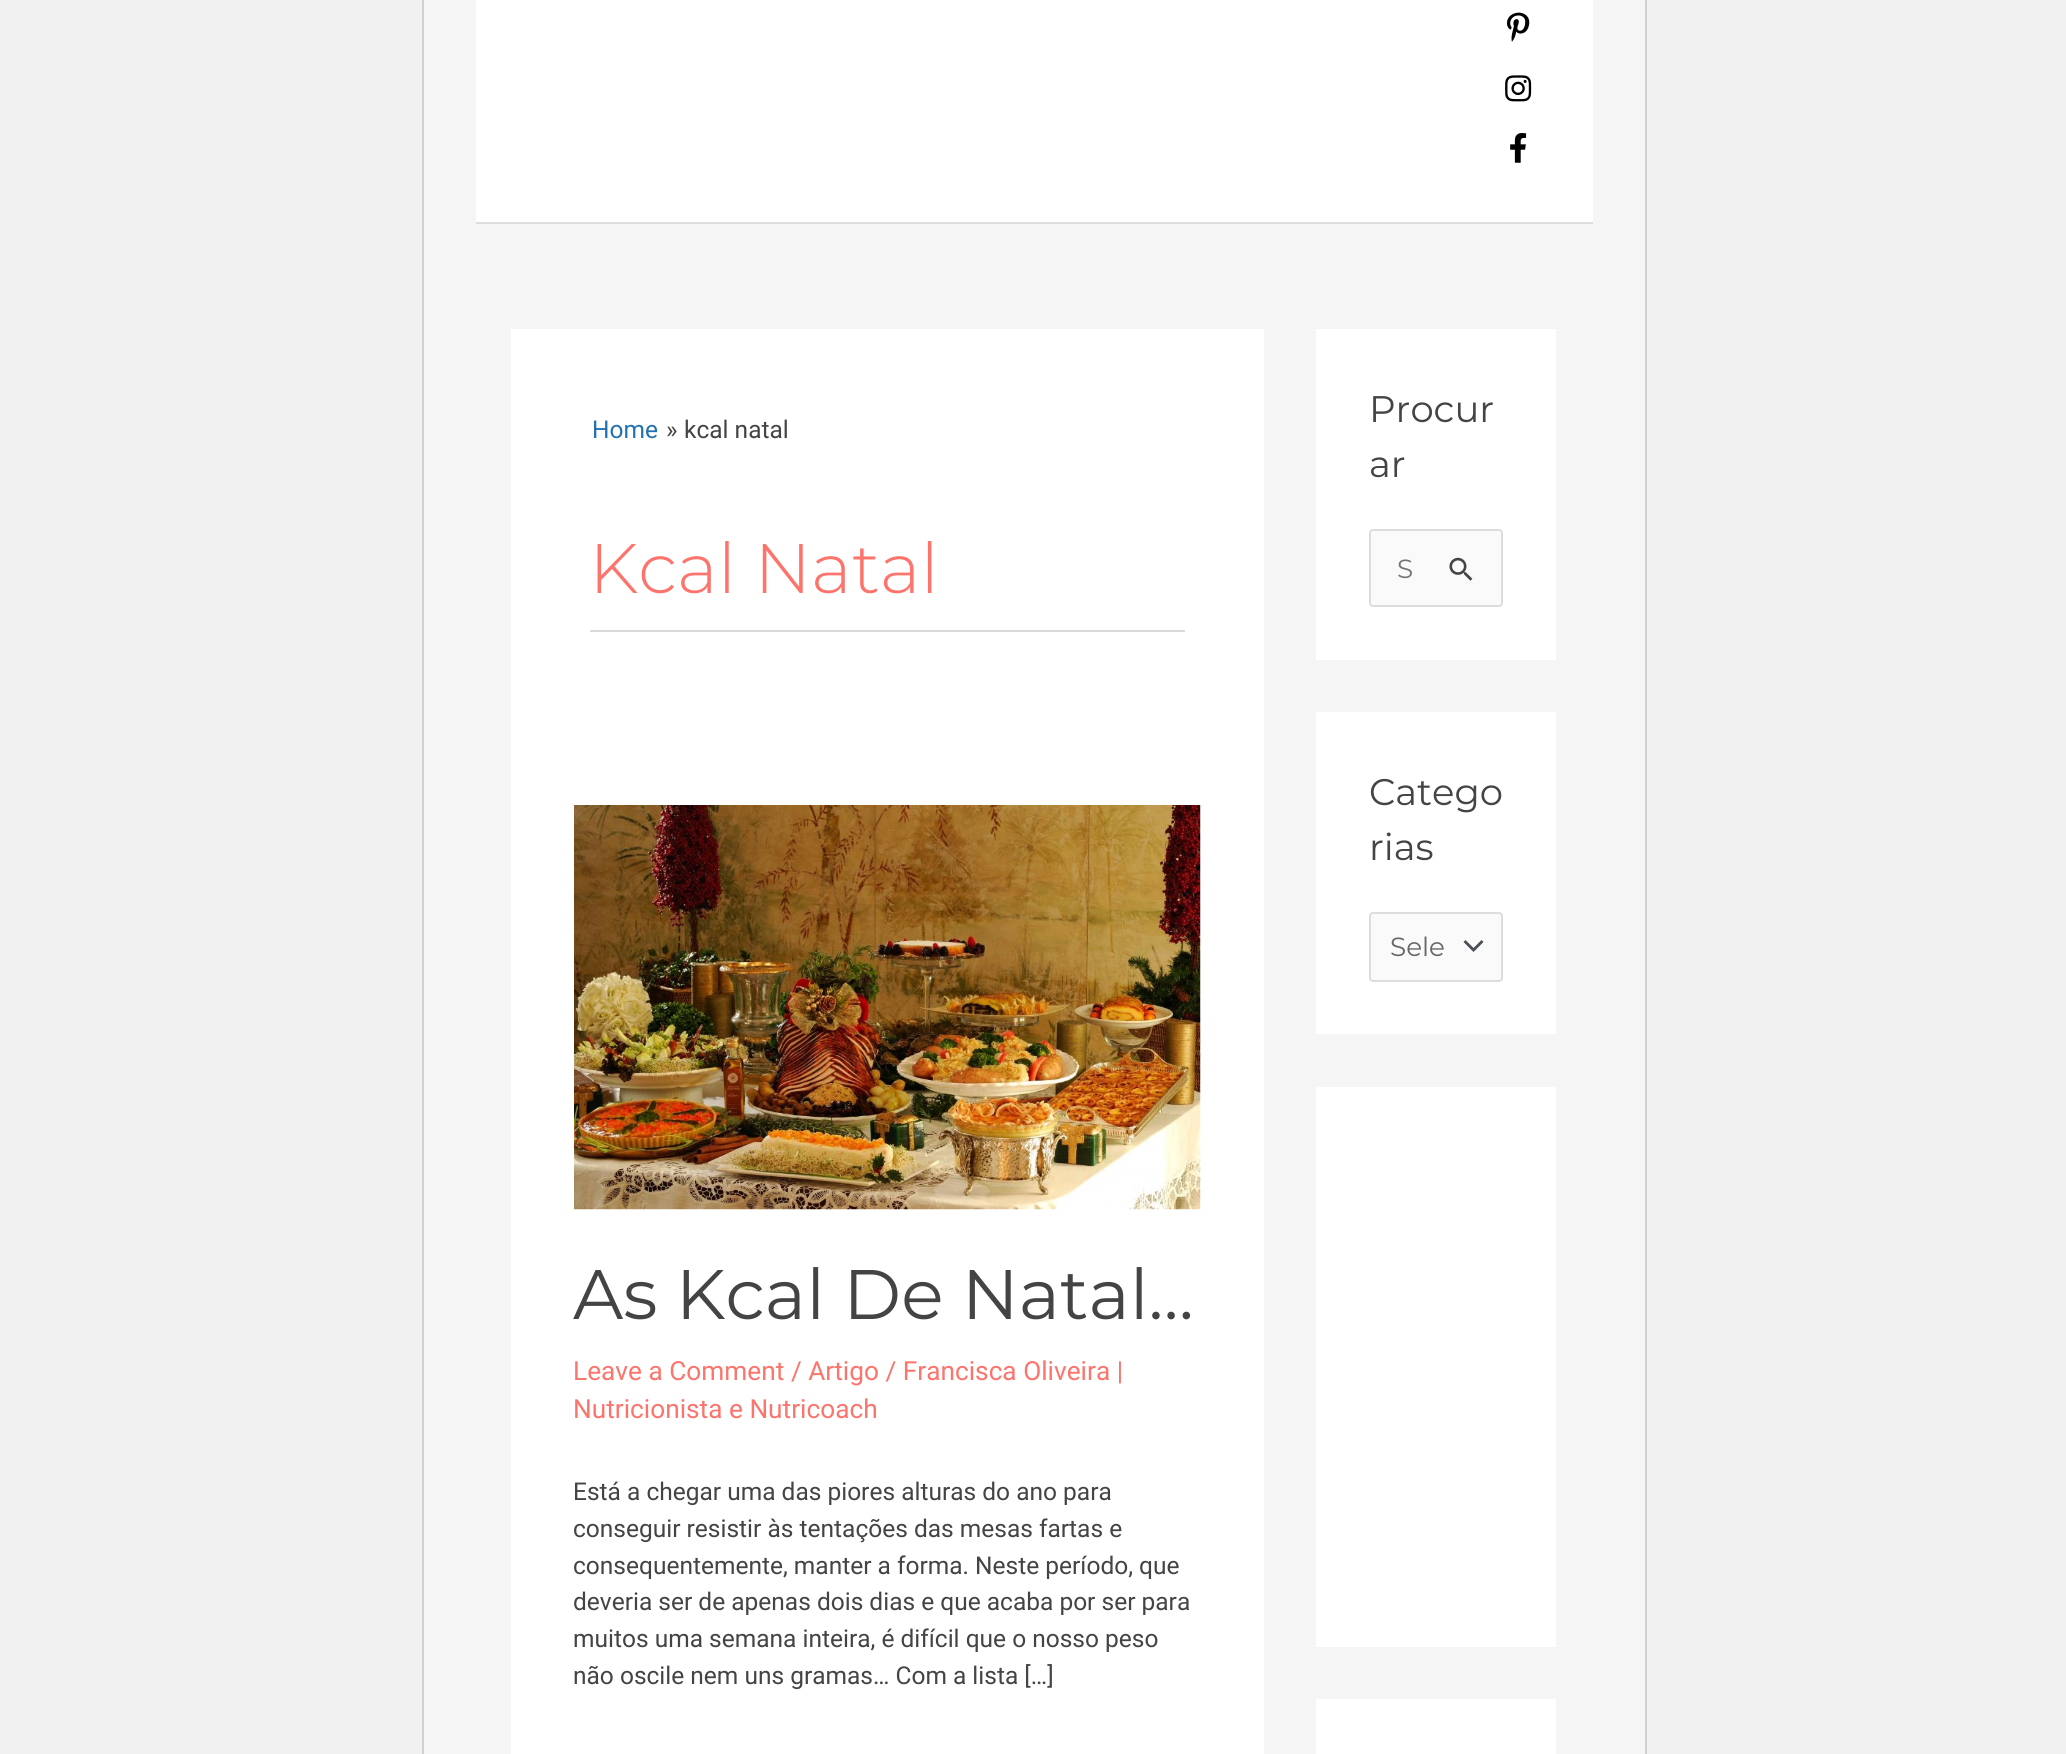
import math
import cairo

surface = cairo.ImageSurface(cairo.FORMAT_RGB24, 2066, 1754)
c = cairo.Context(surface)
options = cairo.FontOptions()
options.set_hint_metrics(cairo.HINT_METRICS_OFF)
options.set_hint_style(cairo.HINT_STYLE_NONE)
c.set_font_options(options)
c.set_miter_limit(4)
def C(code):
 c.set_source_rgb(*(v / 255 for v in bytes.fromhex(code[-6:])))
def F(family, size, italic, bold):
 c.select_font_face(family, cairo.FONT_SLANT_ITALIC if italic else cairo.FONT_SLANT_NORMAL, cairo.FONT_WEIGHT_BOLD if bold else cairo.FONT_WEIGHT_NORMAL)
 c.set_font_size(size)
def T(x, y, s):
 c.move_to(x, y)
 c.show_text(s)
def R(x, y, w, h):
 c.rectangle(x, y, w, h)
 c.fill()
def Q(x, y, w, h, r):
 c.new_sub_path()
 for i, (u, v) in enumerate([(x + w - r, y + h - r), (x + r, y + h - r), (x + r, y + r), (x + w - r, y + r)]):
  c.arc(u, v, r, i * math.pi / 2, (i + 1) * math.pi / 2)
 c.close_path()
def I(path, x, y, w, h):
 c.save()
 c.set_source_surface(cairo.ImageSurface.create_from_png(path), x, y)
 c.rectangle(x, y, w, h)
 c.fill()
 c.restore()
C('f1f1f1')
c.paint()
C('f5f5f5')
c.rectangle(423,-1,1223,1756)
c.fill_preserve()
C('ccd0d4')
c.stroke()
C('ffffff')
R(476,0,1117,222)
C('dddddd')
R(476,222,1117,2)
I('1.png',1507,12,23,30)
I('2.png',1505,75,27,27)
I('3.png',1510,133,17,30)
C('ffffff')
R(511,329,753,1425)
F('Roboto',24.5,0,0)
C('2271b1')
T(592,438,'Home')
C('444444')
T(666,438,'»')
T(684,438,'kcal natal')
C('dadada')
R(590,630,595,2)
F('Montserrat Light',70,0,0)
C('fc746c')
T(589,593,'Kcal Natal')
I('4.png',574,805,627,405)
F('Montserrat',70,0,0)
C('444444')
T(573,1319,'As Kcal De Natal…')
F('Roboto',26.25,0,0)
C('fc746c')
T(573,1380,'Leave a Comment / Artigo / Francisca Oliveira |')
T(573,1418,'Nutricionista e Nutricoach')
F('Roboto',24.5,0,0)
C('444444')
T(573,1500,'Está a chegar uma das piores alturas do ano para')
T(573,1537,'conseguir resistir às tentações das mesas fartas e')
T(573,1574,'consequentemente, manter a forma. Neste período, que')
T(573,1610,'deveria ser de apenas dois dias e que acaba por ser para')
T(573,1647,'muitos uma semana inteira, é difícil que o nosso peso')
T(573,1684,'não oscile nem uns gramas… Com a lista […]')
C('ffffff')
R(1316,329,240,331)
F('Montserrat',37,0,0)
C('444444')
T(1369,422,'Procur')
T(1369,477,'ar')
C('fafafa')
Q(1370,530,132,76,3)
c.fill_preserve()
C('dddddd')
c.stroke()
F('Montserrat',26.25,0,0)
C('757575')
T(1397,578,'S')
I('5.png',1449,557,24,24)
C('ffffff')
R(1316,712,240,322)
F('Montserrat',37,0,0)
C('444444')
T(1369,805,'Catego')
T(1369,860,'rias')
C('fafafa')
Q(1369,912,134,70,4)
c.fill()
C('4b4f58')
c.new_path()
c.move_to(1463.5,942)
c.line_to(1473.5,952)
c.line_to(1483.5,942)
c.line_to(1481.5,940)
c.line_to(1473.5,948)
c.line_to(1465.5,940)
c.close_path()
c.fill()
Q(1370,913,132,68,3)
C('dddddd')
c.stroke()
F('Montserrat',26.25,0,0)
C('666666')
T(1390,956,'Sele')
C('ffffff')
R(1316,1087,240,560)
R(1316,1699,240,55)
surface.write_to_png('o.png')
